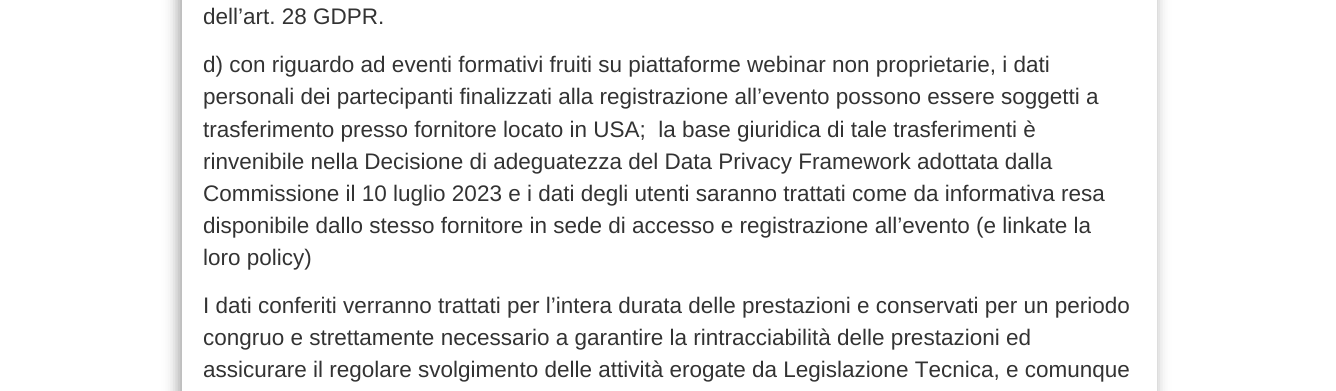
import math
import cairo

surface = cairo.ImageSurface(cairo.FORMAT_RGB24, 1336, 391)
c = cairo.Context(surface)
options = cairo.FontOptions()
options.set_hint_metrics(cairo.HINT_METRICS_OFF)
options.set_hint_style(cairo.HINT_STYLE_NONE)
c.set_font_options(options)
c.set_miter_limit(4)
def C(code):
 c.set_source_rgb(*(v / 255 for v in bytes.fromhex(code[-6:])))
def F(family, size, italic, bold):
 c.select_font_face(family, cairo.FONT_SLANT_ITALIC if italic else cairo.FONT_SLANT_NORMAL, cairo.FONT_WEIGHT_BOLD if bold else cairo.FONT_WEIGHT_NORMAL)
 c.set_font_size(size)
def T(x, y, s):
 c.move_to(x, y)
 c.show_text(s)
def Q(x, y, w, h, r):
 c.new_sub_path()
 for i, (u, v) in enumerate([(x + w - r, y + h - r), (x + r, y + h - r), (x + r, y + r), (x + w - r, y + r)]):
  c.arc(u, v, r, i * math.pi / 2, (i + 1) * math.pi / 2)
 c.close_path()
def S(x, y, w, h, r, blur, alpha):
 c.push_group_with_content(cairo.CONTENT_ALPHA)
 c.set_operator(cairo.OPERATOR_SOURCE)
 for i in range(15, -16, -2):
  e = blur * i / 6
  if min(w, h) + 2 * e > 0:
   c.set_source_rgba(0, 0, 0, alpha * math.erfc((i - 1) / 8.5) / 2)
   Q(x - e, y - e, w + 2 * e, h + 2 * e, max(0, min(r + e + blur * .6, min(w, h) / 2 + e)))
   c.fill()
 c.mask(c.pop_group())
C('ffffff')
c.paint()
c.save()
c.set_fill_rule(cairo.FILL_RULE_EVEN_ODD)
c.new_path()
c.move_to(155,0)
c.line_to(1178,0)
c.line_to(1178,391)
c.line_to(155,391)
c.close_path()
c.move_to(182,-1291)
c.line_to(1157,-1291)
c.line_to(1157,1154)
c.line_to(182,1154)
c.close_path()
c.clip()
C('999999')
S(179,-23,975,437,0,7.5,1)
c.restore()
F('Liberation Sans',22.5,0,0)
C('333333')
T(203,24,'dell’art. 28 GDPR.')
T(203,72,'d) con riguardo ad eventi formativi fruiti su piattaforme webinar non proprietarie, i dati')
T(203,104,'personali dei partecipanti finalizzati alla registrazione all’evento possono essere soggetti a')
T(203,137,'trasferimento presso fornitore locato in USA;  la base giuridica di tale trasferimenti è')
T(203,169,'rinvenibile nella Decisione di adeguatezza del Data Privacy Framework adottata dalla')
T(203,201,'Commissione il 10 luglio 2023 e i dati degli utenti saranno trattati come da informativa resa')
T(203,233,'disponibile dallo stesso fornitore in sede di accesso e registrazione all’evento (e linkate la')
T(203,265,'loro policy)')
T(203,313,'I dati conferiti verranno trattati per l’intera durata delle prestazioni e conservati per un periodo')
T(203,345,'congruo e strettamente necessario a garantire la rintracciabilità delle prestazioni ed')
T(203,377,'assicurare il regolare svolgimento delle attività erogate da Legislazione Tecnica, e comunque')
surface.write_to_png('o.png')
